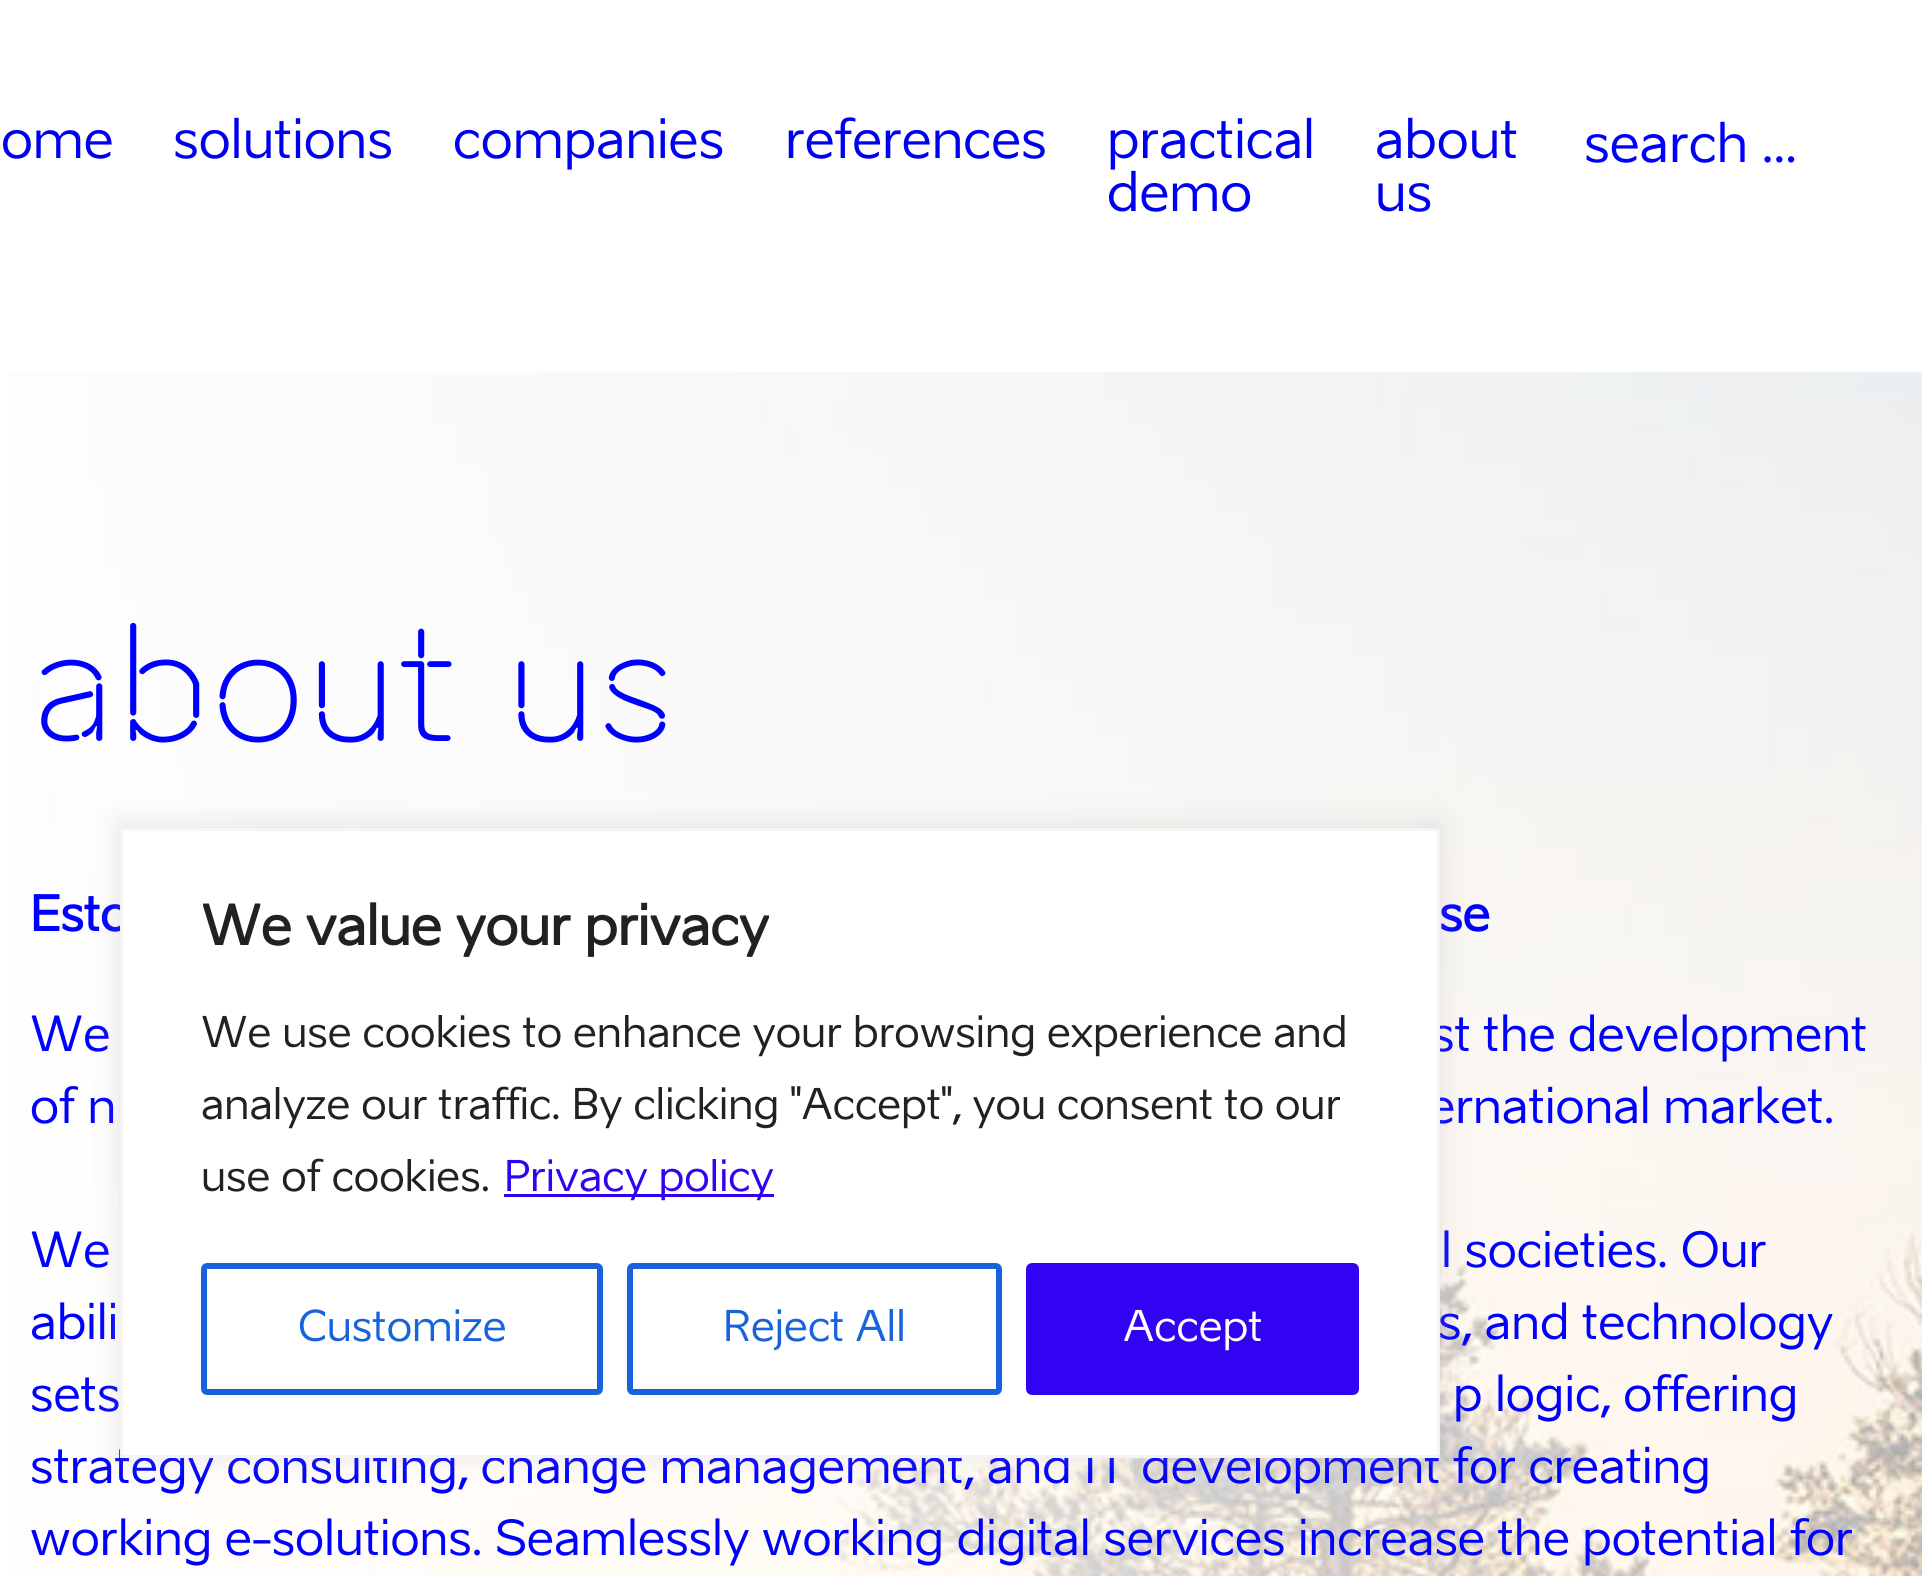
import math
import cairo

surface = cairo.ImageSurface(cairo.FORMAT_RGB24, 1922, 1576)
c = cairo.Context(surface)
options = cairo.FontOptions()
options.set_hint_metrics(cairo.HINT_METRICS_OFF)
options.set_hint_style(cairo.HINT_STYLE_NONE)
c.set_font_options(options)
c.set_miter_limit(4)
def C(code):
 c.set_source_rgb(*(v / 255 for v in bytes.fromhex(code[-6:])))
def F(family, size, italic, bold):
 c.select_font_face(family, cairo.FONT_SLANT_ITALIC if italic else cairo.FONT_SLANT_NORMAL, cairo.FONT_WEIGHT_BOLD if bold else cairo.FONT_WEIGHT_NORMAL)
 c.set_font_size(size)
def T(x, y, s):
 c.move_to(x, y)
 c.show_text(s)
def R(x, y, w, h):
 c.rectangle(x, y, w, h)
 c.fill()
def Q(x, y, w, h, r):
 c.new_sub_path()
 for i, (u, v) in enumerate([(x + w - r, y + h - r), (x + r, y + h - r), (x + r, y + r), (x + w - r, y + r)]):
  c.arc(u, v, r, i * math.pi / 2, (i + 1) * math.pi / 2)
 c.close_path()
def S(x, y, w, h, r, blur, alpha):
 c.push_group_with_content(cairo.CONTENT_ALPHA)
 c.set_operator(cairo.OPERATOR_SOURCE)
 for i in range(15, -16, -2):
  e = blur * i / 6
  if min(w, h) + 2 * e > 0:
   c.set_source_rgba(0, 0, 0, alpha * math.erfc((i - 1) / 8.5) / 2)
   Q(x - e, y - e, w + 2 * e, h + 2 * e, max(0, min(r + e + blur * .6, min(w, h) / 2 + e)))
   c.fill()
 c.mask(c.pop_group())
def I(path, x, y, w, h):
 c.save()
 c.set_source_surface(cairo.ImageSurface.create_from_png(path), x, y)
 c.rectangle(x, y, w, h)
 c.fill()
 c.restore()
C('ffffff')
c.paint()
F('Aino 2',52.75,0,0)
C('0000f0')
T(1,158,'ome')
T(173,158,'solutions')
T(453,158,'companies')
T(785,158,'references')
T(1107,158,'practical')
T(1107,211,'demo')
T(1375,158,'about')
T(1375,211,'us')
C('0000ff')
T(1584,162,'search …')
I('1.png',8,372,1914,1204)
F('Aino',153.5,0,0)
T(30,741,'about us')
F('Aino',48,0,1)
T(30,931,'Esto')
T(1439,931,'se')
F('Aino 2',48,0,0)
T(30,1051,'We')
T(1431,1051,'st the development')
T(30,1123,'of n')
T(1428,1123,'ernational market.')
T(30,1267,'We')
T(1441,1267,'l societies. Our')
T(30,1339,'abili')
T(1438,1339,'s, and technology')
T(30,1411,'sets')
T(1453,1411,'p logic, offering')
T(30,1483,'strategy consulting, change management, and IT development for creating')
T(30,1555,'working e-solutions. Seamlessly working digital services increase the potential for')
C('acabab')
S(120,825,1320,630,0,15,.3)
C('ffffff')
c.rectangle(121.5,829.5,1317,627)
c.fill_preserve()
C('f4f4f4')
c.set_line_width(3)
c.stroke()
F('Aino',54,0,1)
C('212121')
T(201,945,'We value your privacy')
F('Aino 2',42,0,0)
T(201,1047,'We use cookies to enhance your browsing experience and')
T(201,1119,'analyze our traffic. By clicking "Accept", you consent to our')
T(201,1191,'use of cookies.')
C('3202f3')
R(504,1194,270,3)
T(504,1191,'Privacy policy')
Q(204,1266,396,126,3)
C('1863dc')
c.set_line_width(6)
c.stroke()
T(298,1341,'Customize')
Q(630,1266,369,126,3)
c.stroke()
T(723,1341,'Reject All')
C('3202f3')
Q(1029,1266,327,126,3)
c.fill_preserve()
c.stroke()
C('ffffff')
T(1123,1341,'Accept')
surface.write_to_png('o.png')
